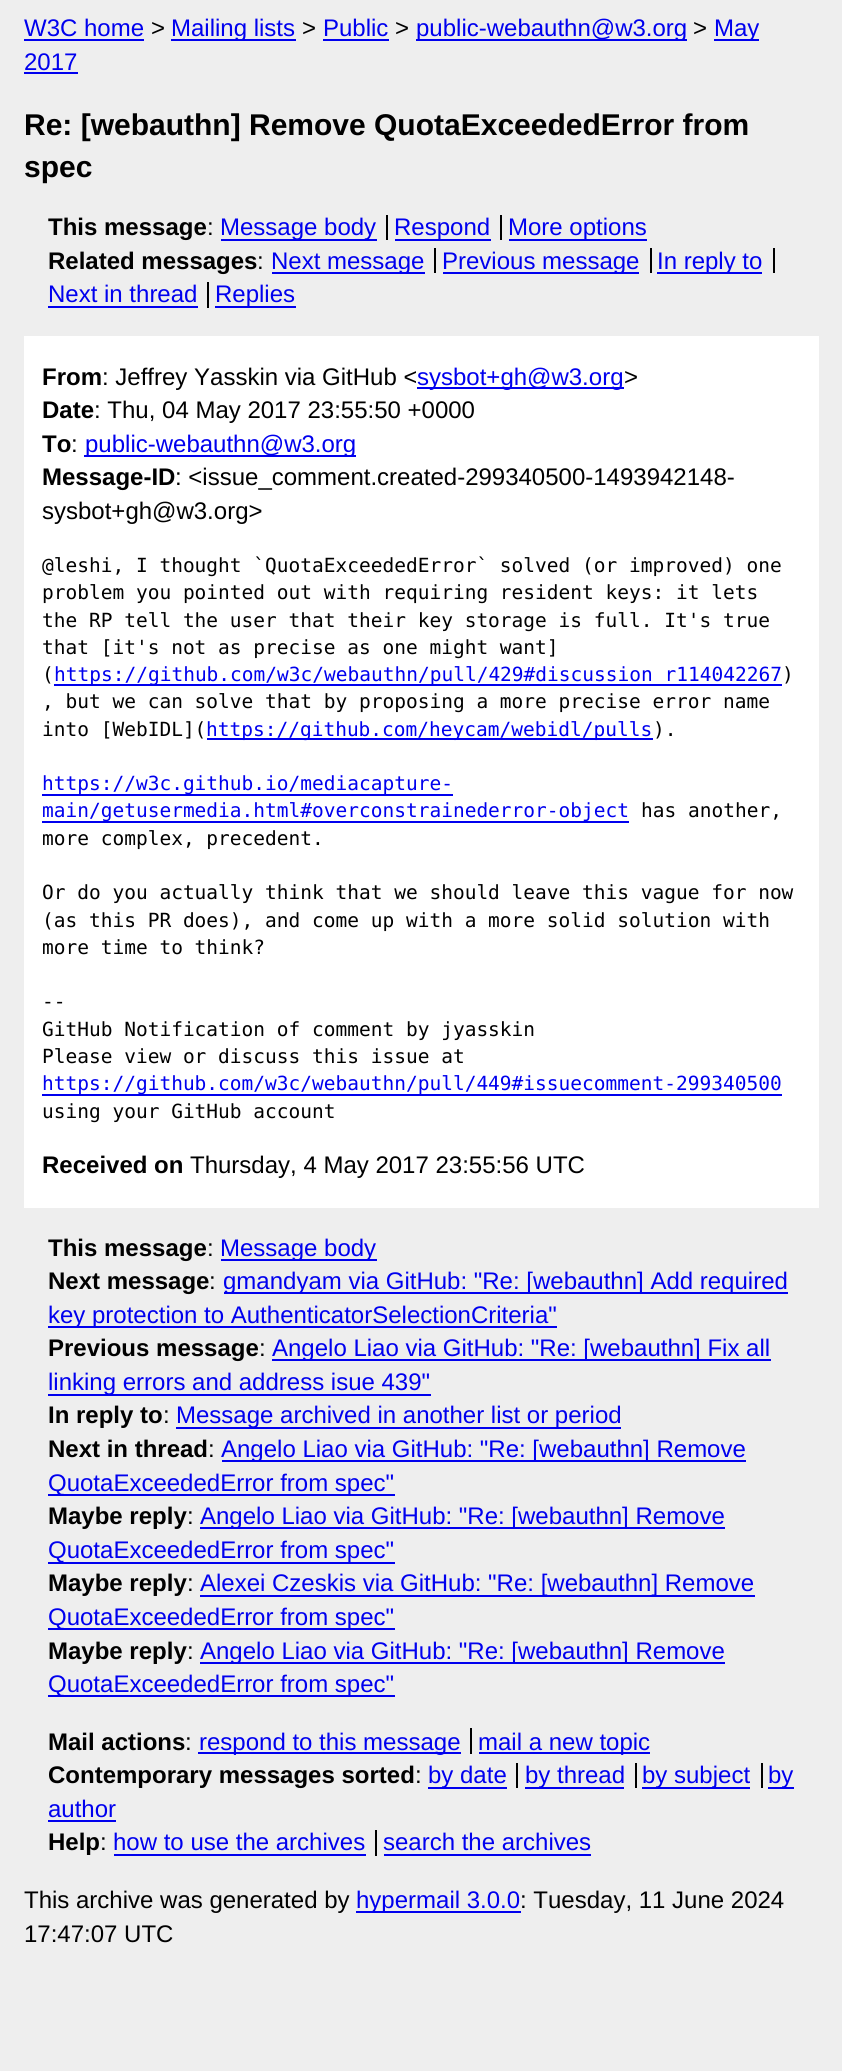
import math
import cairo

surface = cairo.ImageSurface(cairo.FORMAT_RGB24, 842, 2071)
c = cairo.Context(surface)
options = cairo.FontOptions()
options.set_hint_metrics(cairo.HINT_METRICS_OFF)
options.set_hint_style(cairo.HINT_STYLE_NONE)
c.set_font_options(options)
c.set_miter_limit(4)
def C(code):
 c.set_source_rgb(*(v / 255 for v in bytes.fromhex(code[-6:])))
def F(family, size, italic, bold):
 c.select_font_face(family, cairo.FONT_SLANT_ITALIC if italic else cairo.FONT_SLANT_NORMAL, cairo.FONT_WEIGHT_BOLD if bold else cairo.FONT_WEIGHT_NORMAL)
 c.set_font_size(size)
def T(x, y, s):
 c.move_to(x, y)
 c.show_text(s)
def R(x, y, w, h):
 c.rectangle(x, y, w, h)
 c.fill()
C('eeeeee')
c.paint()
F('Liberation Sans',24,0,0)
C('0000ee')
T(24,36,'W3C home')
R(24,39,120,2)
C('000000')
T(151,36,'>')
C('0000ee')
R(171,39,125,2)
T(171,36,'Mailing lists')
C('000000')
T(302,36,'>')
C('0000ee')
T(323,36,'Public')
R(323,39,66,2)
C('000000')
T(395,36,'>')
C('0000ee')
R(416,39,271,2)
T(416,36,'public-webauthn@w3.org')
C('000000')
T(693,36,'>')
C('0000ee')
R(714,39,45,2)
T(714,36,'May')
T(24,70,'2017')
R(24,72,54,2)
F('Liberation Sans',30,0,1)
C('000000')
T(24,135,'Re: [webauthn] Remove QuotaExceededError from')
T(24,177,'spec')
F('Liberation Sans',24,0,1)
T(48,235,'This message')
F('Liberation Sans',24,0,0)
T(207,235,':')
C('0000ee')
R(221,239,156,2)
T(220,235,'Message body')
R(395,239,96,2)
T(394,235,'Respond')
C('000000')
R(386,215,2,25)
C('0000ee')
R(509,239,138,2)
T(508,235,'More options')
C('000000')
R(500,215,2,25)
F('Liberation Sans',24,0,1)
T(48,269,'Related messages')
F('Liberation Sans',24,0,0)
T(257,269,':')
C('0000ee')
R(272,272,153,2)
T(271,269,'Next message')
R(443,272,196,2)
T(442,269,'Previous message')
C('000000')
R(434,248,2,25)
C('0000ee')
R(657,272,105,2)
T(657,269,'In reply to')
C('000000')
R(650,248,2,25)
R(773,248,2,25)
C('0000ee')
T(48,302,'Next in thread')
R(48,306,150,2)
R(215,306,81,2)
T(215,302,'Replies')
C('000000')
R(207,282,2,26)
C('ffffff')
R(24,336,795,872)
F('Liberation Sans',24,0,1)
C('000000')
T(42,385,'From')
F('Liberation Sans',24,0,0)
T(102,385,': Jeffrey Yasskin via GitHub <')
C('0000ee')
R(417,387,207,2)
T(417,385,'sysbot+gh@w3.org')
C('000000')
T(624,385,'>')
F('Liberation Sans',24,0,1)
T(42,418,'Date')
F('Liberation Sans',24,0,0)
T(94,418,': Thu, 04 May 2017 23:55:50 +0000')
F('Liberation Sans',24,0,1)
T(42,452,'To')
F('Liberation Sans',24,0,0)
T(71,452,':')
C('0000ee')
R(84,455,272,2)
T(85,452,'public-webauthn@w3.org')
F('Liberation Sans',24,0,1)
C('000000')
T(42,485,'Message-ID')
F('Liberation Sans',24,0,0)
T(175,485,': <issue_comment.created-299340500-1493942148-')
T(42,519,'sysbot+gh@w3.org>')
F('DejaVu Sans Mono',19.5,0,0)
T(42,572,'@leshi, I thought `QuotaExceededError` solved (or improved) one')
T(42,599,'problem you pointed out with requiring resident keys: it lets')
T(42,627,'the RP tell the user that their key storage is full. It\'s true')
T(42,654,'that [it\'s not as precise as one might want]')
T(42,681,'(')
C('0000ee')
R(54,684,728,2)
T(54,681,'https://github.com/w3c/webauthn/pull/429#discussion_r114042267')
C('000000')
T(782,681,')')
T(42,708,', but we can solve that by proposing a more precise error name')
T(42,736,'into [WebIDL](')
C('0000ee')
R(207,738,446,2)
T(206,736,'https://github.com/heycam/webidl/pulls')
C('000000')
T(653,736,').')
C('0000ee')
R(42,794,411,2)
T(42,790,'https://w3c.github.io/mediacapture-')
R(42,821,587,2)
T(42,817,'main/getusermedia.html#overconstrainederror-object')
C('000000')
T(641,817,'has another,')
T(42,845,'more complex, precedent.')
T(42,899,'Or do you actually think that we should leave this vague for now')
T(42,927,'(as this PR does), and come up with a more solid solution with')
T(42,954,'more time to think?')
T(42,1008,'--')
T(42,1036,'GitHub Notification of comment by jyasskin')
T(42,1063,'Please view or discuss this issue at')
C('0000ee')
R(42,1094,740,2)
T(42,1090,'https://github.com/w3c/webauthn/pull/449#issuecomment-299340500')
C('000000')
T(42,1118,'using your GitHub account')
F('Liberation Sans',24,0,1)
T(42,1173,'Received on')
F('Liberation Sans',24,0,0)
T(190,1173,'Thursday, 4 May 2017 23:55:56 UTC')
F('Liberation Sans',24,0,1)
T(48,1256,'This message')
F('Liberation Sans',24,0,0)
T(207,1256,':')
C('0000ee')
R(221,1259,156,2)
T(220,1256,'Message body')
F('Liberation Sans',24,0,1)
C('000000')
T(48,1289,'Next message')
F('Liberation Sans',24,0,0)
T(209,1289,':')
C('0000ee')
R(224,1292,564,2)
T(223,1289,'gmandyam via GitHub: "Re: [webauthn] Add required')
R(48,1326,509,2)
T(48,1323,'key protection to AuthenticatorSelectionCriteria"')
F('Liberation Sans',24,0,1)
C('000000')
T(48,1356,'Previous message')
F('Liberation Sans',24,0,0)
T(259,1356,':')
C('0000ee')
R(272,1359,499,2)
T(272,1356,'Angelo Liao via GitHub: "Re: [webauthn] Fix all')
R(48,1394,383,2)
T(48,1390,'linking errors and address isue 439"')
F('Liberation Sans',24,0,1)
C('000000')
T(48,1423,'In reply to')
F('Liberation Sans',24,0,0)
T(163,1423,':')
C('0000ee')
R(176,1427,445,2)
T(176,1423,'Message archived in another list or period')
F('Liberation Sans',24,0,1)
C('000000')
T(48,1457,'Next in thread')
F('Liberation Sans',24,0,0)
T(208,1457,':')
C('0000ee')
R(222,1460,524,2)
T(221,1457,'Angelo Liao via GitHub: "Re: [webauthn] Remove')
R(48,1494,347,2)
T(48,1491,'QuotaExceededError from spec"')
F('Liberation Sans',24,0,1)
C('000000')
T(48,1524,'Maybe reply')
F('Liberation Sans',24,0,0)
T(187,1524,':')
C('0000ee')
R(200,1527,525,2)
T(200,1524,'Angelo Liao via GitHub: "Re: [webauthn] Remove')
R(48,1562,347,2)
T(48,1558,'QuotaExceededError from spec"')
F('Liberation Sans',24,0,1)
C('000000')
T(48,1591,'Maybe reply')
F('Liberation Sans',24,0,0)
T(187,1591,':')
C('0000ee')
R(200,1595,555,2)
T(200,1591,'Alexei Czeskis via GitHub: "Re: [webauthn] Remove')
R(48,1628,347,2)
T(48,1625,'QuotaExceededError from spec"')
F('Liberation Sans',24,0,1)
C('000000')
T(48,1659,'Maybe reply')
F('Liberation Sans',24,0,0)
T(187,1659,':')
C('0000ee')
R(200,1662,525,2)
T(200,1659,'Angelo Liao via GitHub: "Re: [webauthn] Remove')
R(48,1695,347,2)
T(48,1692,'QuotaExceededError from spec"')
F('Liberation Sans',24,0,1)
C('000000')
T(48,1750,'Mail actions')
F('Liberation Sans',24,0,0)
T(185,1750,':')
C('0000ee')
R(198,1752,263,2)
T(199,1750,'respond to this message')
R(479,1752,171,2)
T(478,1750,'mail a new topic')
C('000000')
R(470,1728,2,26)
F('Liberation Sans',24,0,1)
T(48,1783,'Contemporary messages sorted')
F('Liberation Sans',24,0,0)
T(415,1783,':')
C('0000ee')
R(428,1787,79,2)
T(428,1783,'by date')
R(525,1787,99,2)
T(525,1783,'by thread')
C('000000')
R(516,1763,2,25)
C('0000ee')
R(642,1787,108,2)
T(642,1783,'by subject')
C('000000')
R(635,1763,2,25)
C('0000ee')
R(768,1787,26,2)
T(768,1783,'by')
C('000000')
R(761,1763,2,25)
C('0000ee')
T(48,1817,'author')
R(48,1820,68,2)
F('Liberation Sans',24,0,1)
C('000000')
T(48,1850,'Help')
F('Liberation Sans',24,0,0)
T(100,1850,':')
C('0000ee')
T(113,1850,'how to use the archives')
R(114,1854,252,2)
T(383,1850,'search the archives')
C('000000')
R(375,1830,2,26)
C('0000ee')
R(384,1854,207,2)
C('000000')
T(24,1908,'This archive was generated by')
C('0000ee')
R(356,1911,165,2)
T(356,1908,'hypermail 3.0.0')
C('000000')
T(520,1908,': Tuesday, 11 June 2024')
T(24,1942,'17:47:07 UTC')
surface.write_to_png('o.png')
